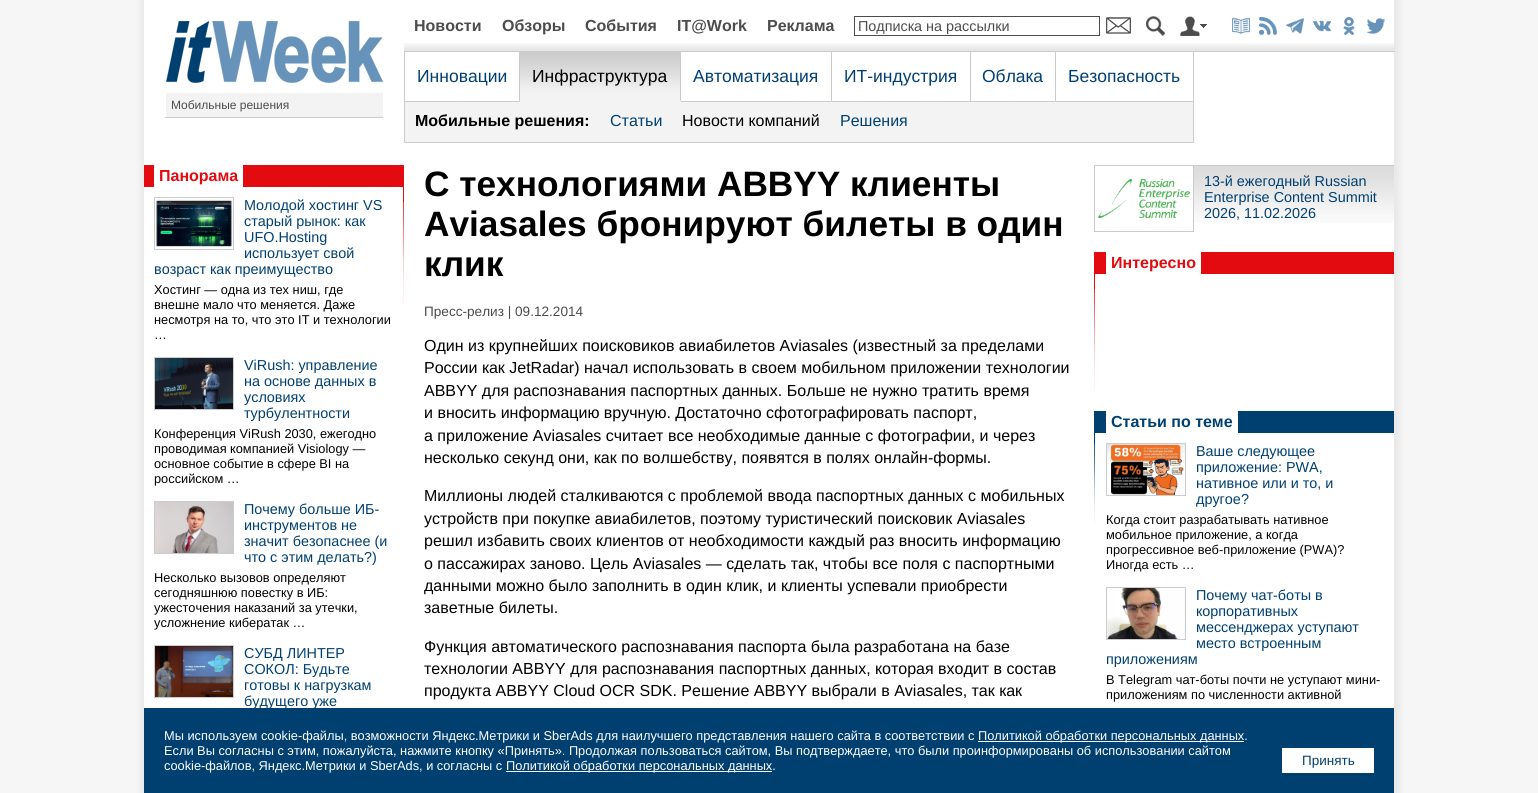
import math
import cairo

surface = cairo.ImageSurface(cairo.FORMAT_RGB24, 1538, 793)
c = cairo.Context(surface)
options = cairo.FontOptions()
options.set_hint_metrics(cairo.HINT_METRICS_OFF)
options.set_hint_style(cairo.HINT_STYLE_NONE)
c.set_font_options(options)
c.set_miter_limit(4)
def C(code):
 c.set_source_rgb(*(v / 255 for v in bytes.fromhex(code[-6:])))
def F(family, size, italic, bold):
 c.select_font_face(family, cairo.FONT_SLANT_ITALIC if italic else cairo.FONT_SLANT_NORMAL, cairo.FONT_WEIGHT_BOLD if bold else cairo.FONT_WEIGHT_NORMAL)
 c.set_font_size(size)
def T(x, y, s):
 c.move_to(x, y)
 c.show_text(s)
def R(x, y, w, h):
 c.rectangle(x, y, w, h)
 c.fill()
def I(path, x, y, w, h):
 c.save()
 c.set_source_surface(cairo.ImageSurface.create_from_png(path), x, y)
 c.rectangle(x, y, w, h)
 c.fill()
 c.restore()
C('ffffff')
c.paint()
I('1.png',0,0,1538,793)
C('ffffff')
R(144,0,2,708)
I('2.png',166,21,217,62)
C('f3f3f3')
R(166,93,217,24)
C('cccccc')
R(165,117,218,1)
F('Liberation Sans',12,0,0)
C('4c4c4c')
T(171,109,'Мобильные решения')
I('3.png',404,43,990,8)
F('Liberation Sans',16,0,1)
T(414,31,'Новости')
T(502,31,'Обзоры')
T(585,31,'События')
T(677,31,'IT@Work')
T(767,31,'Реклама')
c.rectangle(854.5,16.5,245,19)
c.set_line_width(1)
c.stroke()
F('Liberation Sans',14.4,0,0)
T(858,31,'Подписка на рассылки')
I('4.png',1106,17,25,17)
I('5.png',1146,16,19,20)
I('6.png',1180,16,27,20)
I('7.png',1232,17,18,17)
I('8.png',1259,17,18,18)
I('9.png',1286,18,18,16)
I('10.png',1313,20,18,12)
I('11.png',1343,17,12,18)
I('12.png',1367,17,18,18)
C('cccccc')
R(1055,51,340,1)
R(404,101,790,1)
R(1055,51,1,51)
R(970,51,86,1)
R(970,51,1,51)
R(831,51,140,1)
R(831,51,1,51)
R(680,51,152,1)
R(680,51,1,51)
R(519,51,162,1)
C('f3f3f3')
R(519,101,162,1)
C('cccccc')
R(519,51,1,51)
R(404,51,116,1)
R(1193,101,1,42)
R(404,142,790,1)
R(404,101,1,42)
R(404,51,1,51)
F('Liberation Sans',17.5,0,0)
C('004071')
T(417,82,'Инновации')
I('13.png',520,52,160,49)
C('000000')
T(532,82,'Инфраструктура')
C('004071')
T(693,82,'Автоматизация')
T(844,82,'ИТ-индустрия')
T(982,82,'Облака')
C('cccccc')
R(1193,51,1,51)
C('004071')
T(1068,82,'Безопасность')
C('f3f3f3')
R(405,102,788,40)
F('Liberation Sans',16,0,1)
C('000000')
T(415,126,'Мобильные решения:')
F('Liberation Sans',16,0,0)
C('004071')
T(610,126,'Статьи')
C('000000')
T(682,126,'Новости компаний')
C('004071')
T(840,126,'Решения')
C('e30b10')
R(144,165,260,22)
C('ffffff')
R(154,165,89,22)
F('Liberation Sans',16,0,1)
C('e30b10')
T(159,181,'Панорама')
c.rectangle(154.5,197.5,79,52)
C('cccccc')
c.stroke()
I('14.png',155,199,78,48)
F('Liberation Sans',14.4,0,0)
C('004071')
T(244,210,'Молодой хостинг VS')
T(244,226,'старый рынок: как')
T(244,242,'UFO.Hosting')
T(244,258,'использует свой')
T(154,274,'возраст как преимущество')
F('Liberation Sans',12.8,0,0)
C('000000')
T(154,294,'Хостинг — одна из тех ниш, где')
T(154,309,'внешне мало что меняется. Даже')
T(154,324,'несмотря на то, что это IT и технологии')
T(154,339,'…')
c.rectangle(154.5,357.5,79,52)
C('cccccc')
c.stroke()
I('15.png',155,358,78,51)
F('Liberation Sans',14.4,0,0)
C('004071')
T(244,370,'ViRush: управление')
T(244,386,'на основе данных в')
T(244,402,'условиях')
T(244,418,'турбулентности')
F('Liberation Sans',12.8,0,0)
C('000000')
T(154,438,'Конференция ViRush 2030, ежегодно')
T(154,453,'проводимая компанией Visiology —')
T(154,468,'основное событие в сфере BI на')
T(154,483,'российском …')
c.rectangle(154.5,501.5,79,52)
C('cccccc')
c.stroke()
I('16.png',155,502,78,51)
F('Liberation Sans',14.4,0,0)
C('004071')
T(244,514,'Почему больше ИБ-')
T(244,530,'инструментов не')
T(244,546,'значит безопаснее (и')
T(244,562,'что с этим делать?)')
F('Liberation Sans',12.8,0,0)
C('000000')
T(154,582,'Несколько вызовов определяют')
T(154,597,'сегодняшнюю повестку в ИБ:')
T(154,612,'ужесточения наказаний за утечки,')
T(154,627,'усложнение кибератак …')
c.rectangle(154.5,645.5,79,52)
C('cccccc')
c.stroke()
I('17.png',155,646,78,51)
F('Liberation Sans',14.4,0,0)
C('004071')
T(244,658,'СУБД ЛИНТЕР')
T(244,674,'СОКОЛ: Будьте')
T(244,690,'готовы к нагрузкам')
T(244,706,'будущего уже')
I('18.png',403,187,1,117)
F('Liberation Sans',35.25,0,1)
C('000000')
T(424,196,'С технологиями ABBYY клиенты')
T(424,236,'Aviasales бронируют билеты в один')
T(424,276,'клик')
F('Liberation Sans',13.6,0,0)
C('4c4c4c')
T(424,316,'Пресс-релиз | 09.12.2014')
F('Liberation Sans',16,0,0)
C('000000')
T(424,351,'Один из крупнейших поисковиков авиабилетов Aviasales (известный за пределами')
T(424,373,'России как JetRadar) начал использовать в своем мобильном приложении технологии')
T(424,396,'ABBYY для распознавания паспортных данных. Больше не нужно тратить время')
T(424,418,'и вносить информацию вручную. Достаточно сфотографировать паспорт,')
T(424,441,'а приложение Aviasales считает все необходимые данные с фотографии, и через')
T(424,463,'несколько секунд они, как по волшебству, появятся в полях онлайн-формы.')
T(424,501,'Миллионы людей сталкиваются с проблемой ввода паспортных данных с мобильных')
T(424,524,'устройств при покупке авиабилетов, поэтому туристический поисковик Aviasales')
T(424,546,'решил избавить своих клиентов от необходимости каждый раз вносить информацию')
T(424,569,'о пассажирах заново. Цель Aviasales — сделать так, чтобы все поля с паспортными')
T(424,591,'данными можно было заполнить в один клик, и клиенты успевали приобрести')
T(424,613,'заветные билеты.')
T(424,652,'Функция автоматического распознавания паспорта была разработана на базе')
T(424,674,'технологии ABBYY для распознавания паспортных данных, которая входит в состав')
T(424,696,'продукта ABBYY Cloud OCR SDK. Решение ABBYY выбрали в Aviasales, так как')
I('19.png',1194,166,200,57)
c.rectangle(1094.5,165.5,99,66)
C('cccccc')
c.stroke()
I('20.png',1095,166,98,57)
R(1194,165,200,1)
F('Liberation Sans',14.4,0,0)
C('004071')
T(1204,186,'13-й ежегодный Russian')
T(1204,202,'Enterprise Content Summit')
T(1204,218,'2026, 11.02.2026')
C('e30b10')
R(1094,252,300,22)
C('ffffff')
R(1106,252,95,22)
F('Liberation Sans',16,0,1)
C('e30b10')
T(1111,268,'Интересно')
I('18.png',1094,274,1,117)
C('004071')
R(1094,411,300,22)
C('ffffff')
R(1106,411,132,22)
C('004071')
T(1111,427,'Статьи по теме')
I('21.png',1094,433,1,93)
c.rectangle(1106.5,443.5,79,52)
C('cccccc')
c.stroke()
I('22.png',1107,444,78,51)
F('Liberation Sans',14.4,0,0)
C('004071')
T(1196,456,'Ваше следующее')
T(1196,472,'приложение: PWA,')
T(1196,488,'нативное или и то, и')
T(1196,504,'другое?')
F('Liberation Sans',12.8,0,0)
C('000000')
T(1106,524,'Когда стоит разрабатывать нативное')
T(1106,539,'мобильное приложение, а когда')
T(1106,554,'прогрессивное веб-приложение (PWA)?')
T(1106,569,'Иногда есть …')
c.rectangle(1106.5,587.5,79,52)
C('cccccc')
c.stroke()
I('23.png',1107,588,78,51)
F('Liberation Sans',14.4,0,0)
C('004071')
T(1196,600,'Почему чат-боты в')
T(1196,616,'корпоративных')
T(1196,632,'мессенджерах уступают')
T(1196,648,'место встроенным')
T(1106,664,'приложениям')
F('Liberation Sans',12.8,0,0)
C('000000')
T(1106,684,'В Telegram чат-боты почти не уступают мини-')
T(1106,699,'приложениям по численности активной')
C('004071')
R(144,708,1250,85)
C('ffffff')
T(164,740,'Мы используем cookie-файлы, возможности Яндекс.Метрики и SberAds для наилучшего представления нашего сайта в соответствии с')
R(978,741,266,1)
T(978,740,'Политикой обработки персональных данных.')
T(164,755,'Если Вы согласны с этим, пожалуйста, нажмите кнопку «Принять». Продолжая пользоваться сайтом, Вы подтверждаете, что были проинформированы об использовании сайтом')
T(164,770,'cookie-файлов, Яндекс.Метрики и SberAds, и согласны с')
R(506,771,266,1)
T(506,770,'Политикой обработки персональных данных.')
R(1282,748,92,25)
F('Liberation Sans',13.5,0,0)
C('004071')
T(1302,765,'Принять')
surface.write_to_png('o.png')
